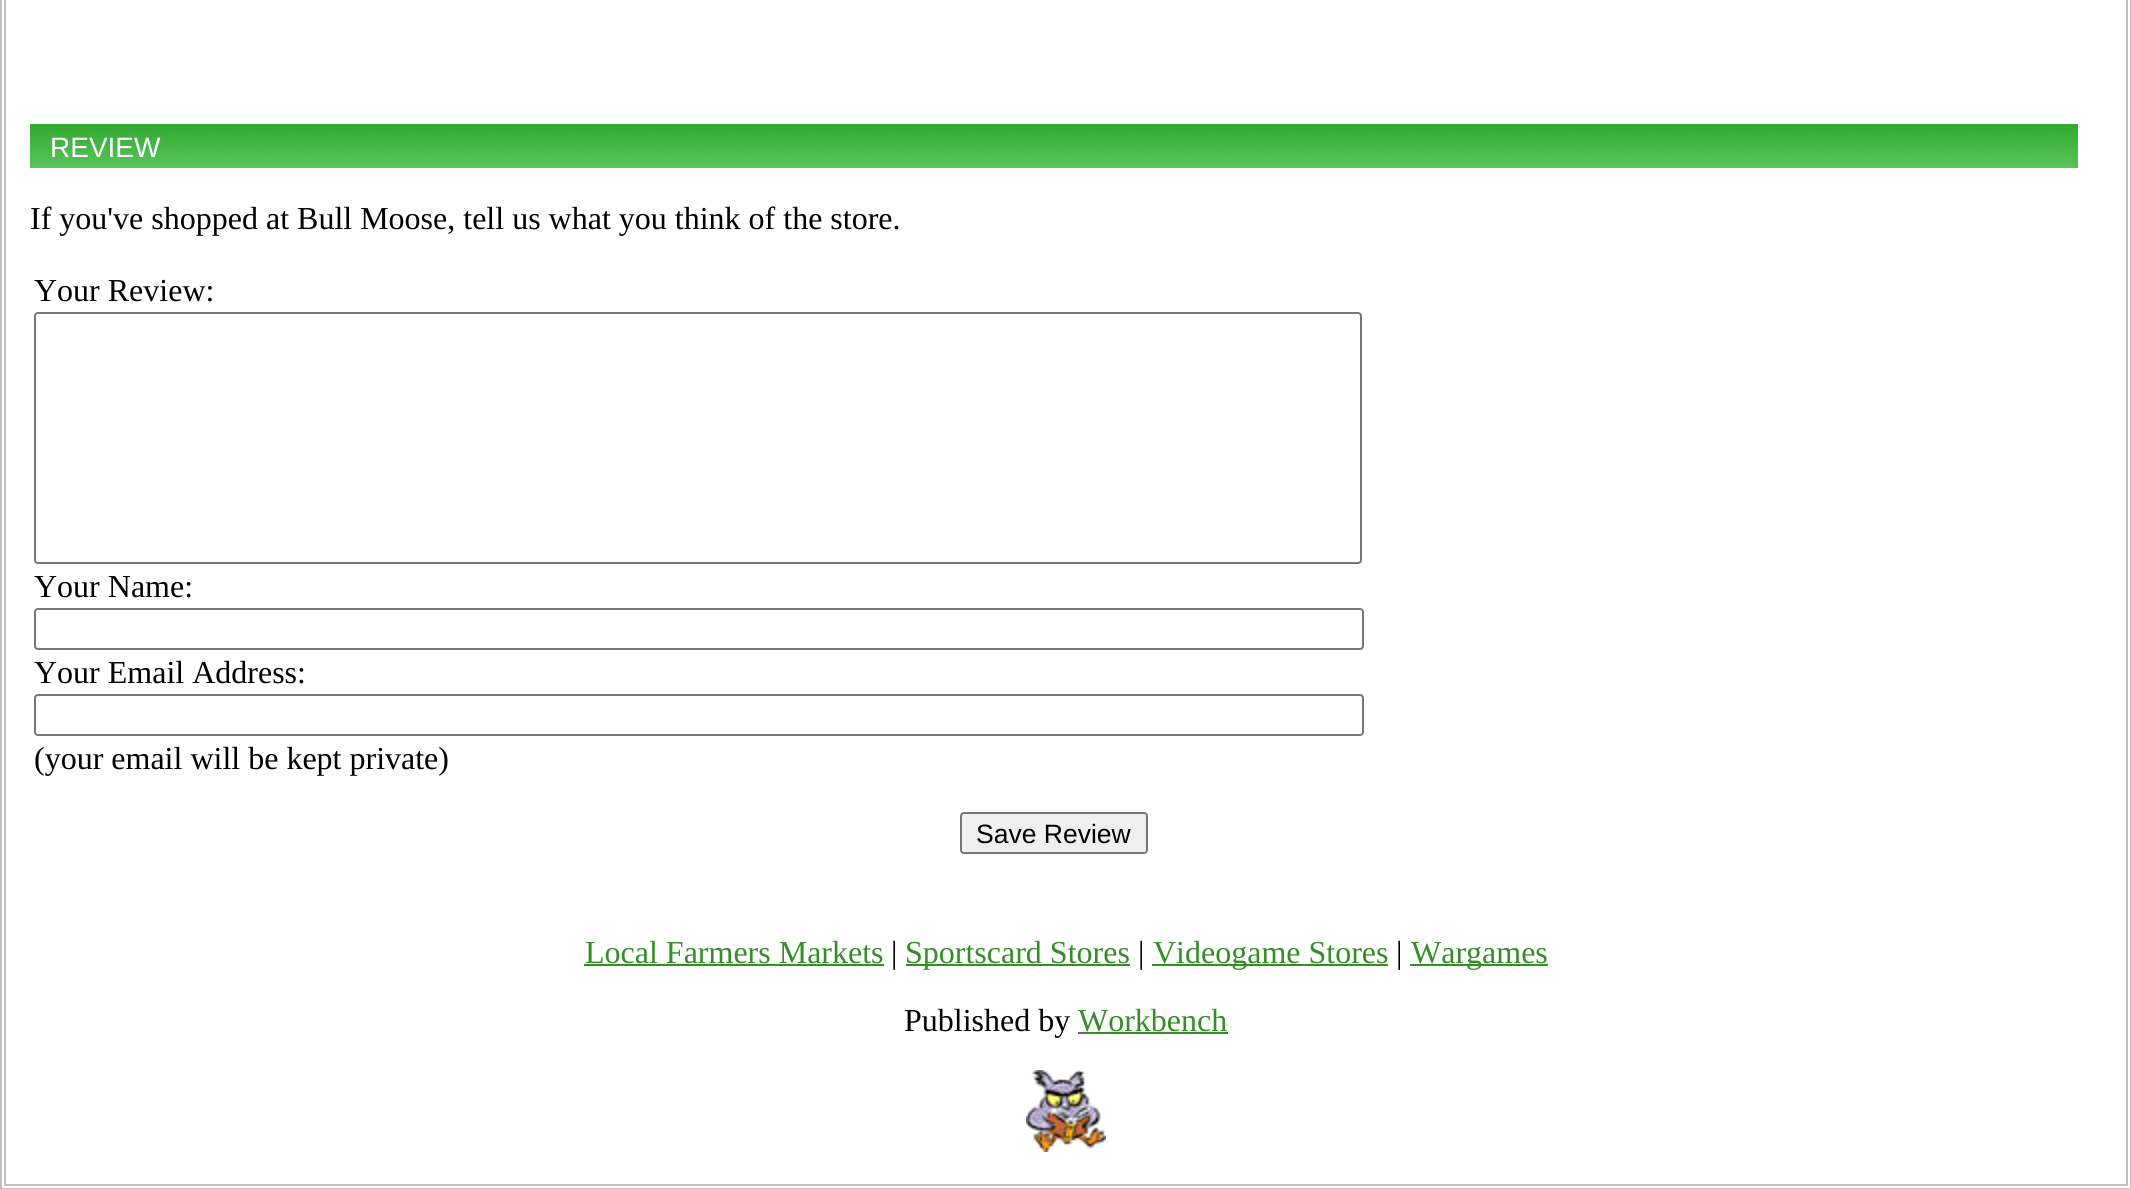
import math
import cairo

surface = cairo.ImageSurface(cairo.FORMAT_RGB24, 2131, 1189)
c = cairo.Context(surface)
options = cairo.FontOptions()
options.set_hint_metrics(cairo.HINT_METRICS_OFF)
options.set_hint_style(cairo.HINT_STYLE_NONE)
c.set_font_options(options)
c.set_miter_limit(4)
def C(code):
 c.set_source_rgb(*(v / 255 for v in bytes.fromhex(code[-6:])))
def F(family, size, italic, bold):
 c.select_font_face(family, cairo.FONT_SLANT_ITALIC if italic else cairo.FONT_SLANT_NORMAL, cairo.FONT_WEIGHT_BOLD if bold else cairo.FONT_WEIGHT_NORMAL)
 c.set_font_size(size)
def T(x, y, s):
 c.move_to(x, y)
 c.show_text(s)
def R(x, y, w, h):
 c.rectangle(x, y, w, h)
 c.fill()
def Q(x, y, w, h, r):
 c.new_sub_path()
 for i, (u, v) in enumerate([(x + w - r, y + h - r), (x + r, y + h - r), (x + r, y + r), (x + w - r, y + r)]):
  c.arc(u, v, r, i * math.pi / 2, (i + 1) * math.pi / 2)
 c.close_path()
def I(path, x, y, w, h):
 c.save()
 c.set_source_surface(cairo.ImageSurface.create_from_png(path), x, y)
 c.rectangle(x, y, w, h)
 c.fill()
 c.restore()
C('ffffff')
c.paint()
c.rectangle(1,-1,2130,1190)
C('c0c0c0')
c.stroke()
c.rectangle(5,-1,2122,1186)
c.stroke()
I('1.png',30,124,2048,44)
F('Liberation Sans',28,0,0)
C('ffffff')
T(50,157,'REVIEW')
F('Liberation Serif',32,0,0)
C('000000')
T(30,229,'If you\'ve shopped at Bull Moose, tell us what you think of the store.')
T(34,301,'Your Review:')
Q(35,313,1326,250,3)
C('767676')
c.stroke()
C('000000')
T(34,597,'Your Name:')
Q(35,609,1328,40,3)
C('767676')
c.stroke()
C('000000')
T(34,683,'Your Email Address:')
Q(35,695,1328,40,3)
C('767676')
c.stroke()
C('000000')
T(34,769,'(your email will be kept private)')
C('efefef')
Q(961,813,186,40,3)
c.fill_preserve()
C('767676')
c.stroke()
F('Liberation Sans',26.5,0,0)
C('000000')
T(976,843,'Save Review')
F('Liberation Serif',32,0,0)
C('338e26')
T(585,963,'Local Farmers Markets')
R(584,964,300,2)
C('000000')
T(891,963,'|')
C('338e26')
R(906,964,224,2)
T(905,963,'Sportscard Stores')
C('000000')
T(1138,963,'|')
C('338e26')
R(1152,964,236,2)
T(1153,963,'Videogame Stores')
C('000000')
T(1396,963,'|')
C('338e26')
R(1410,964,138,2)
T(1411,963,'Wargames')
C('000000')
T(904,1031,'Published by')
C('338e26')
T(1078,1031,'Workbench')
R(1078,1032,150,2)
I('2.png',1026,1070,80,82)
surface.write_to_png('o.png')
